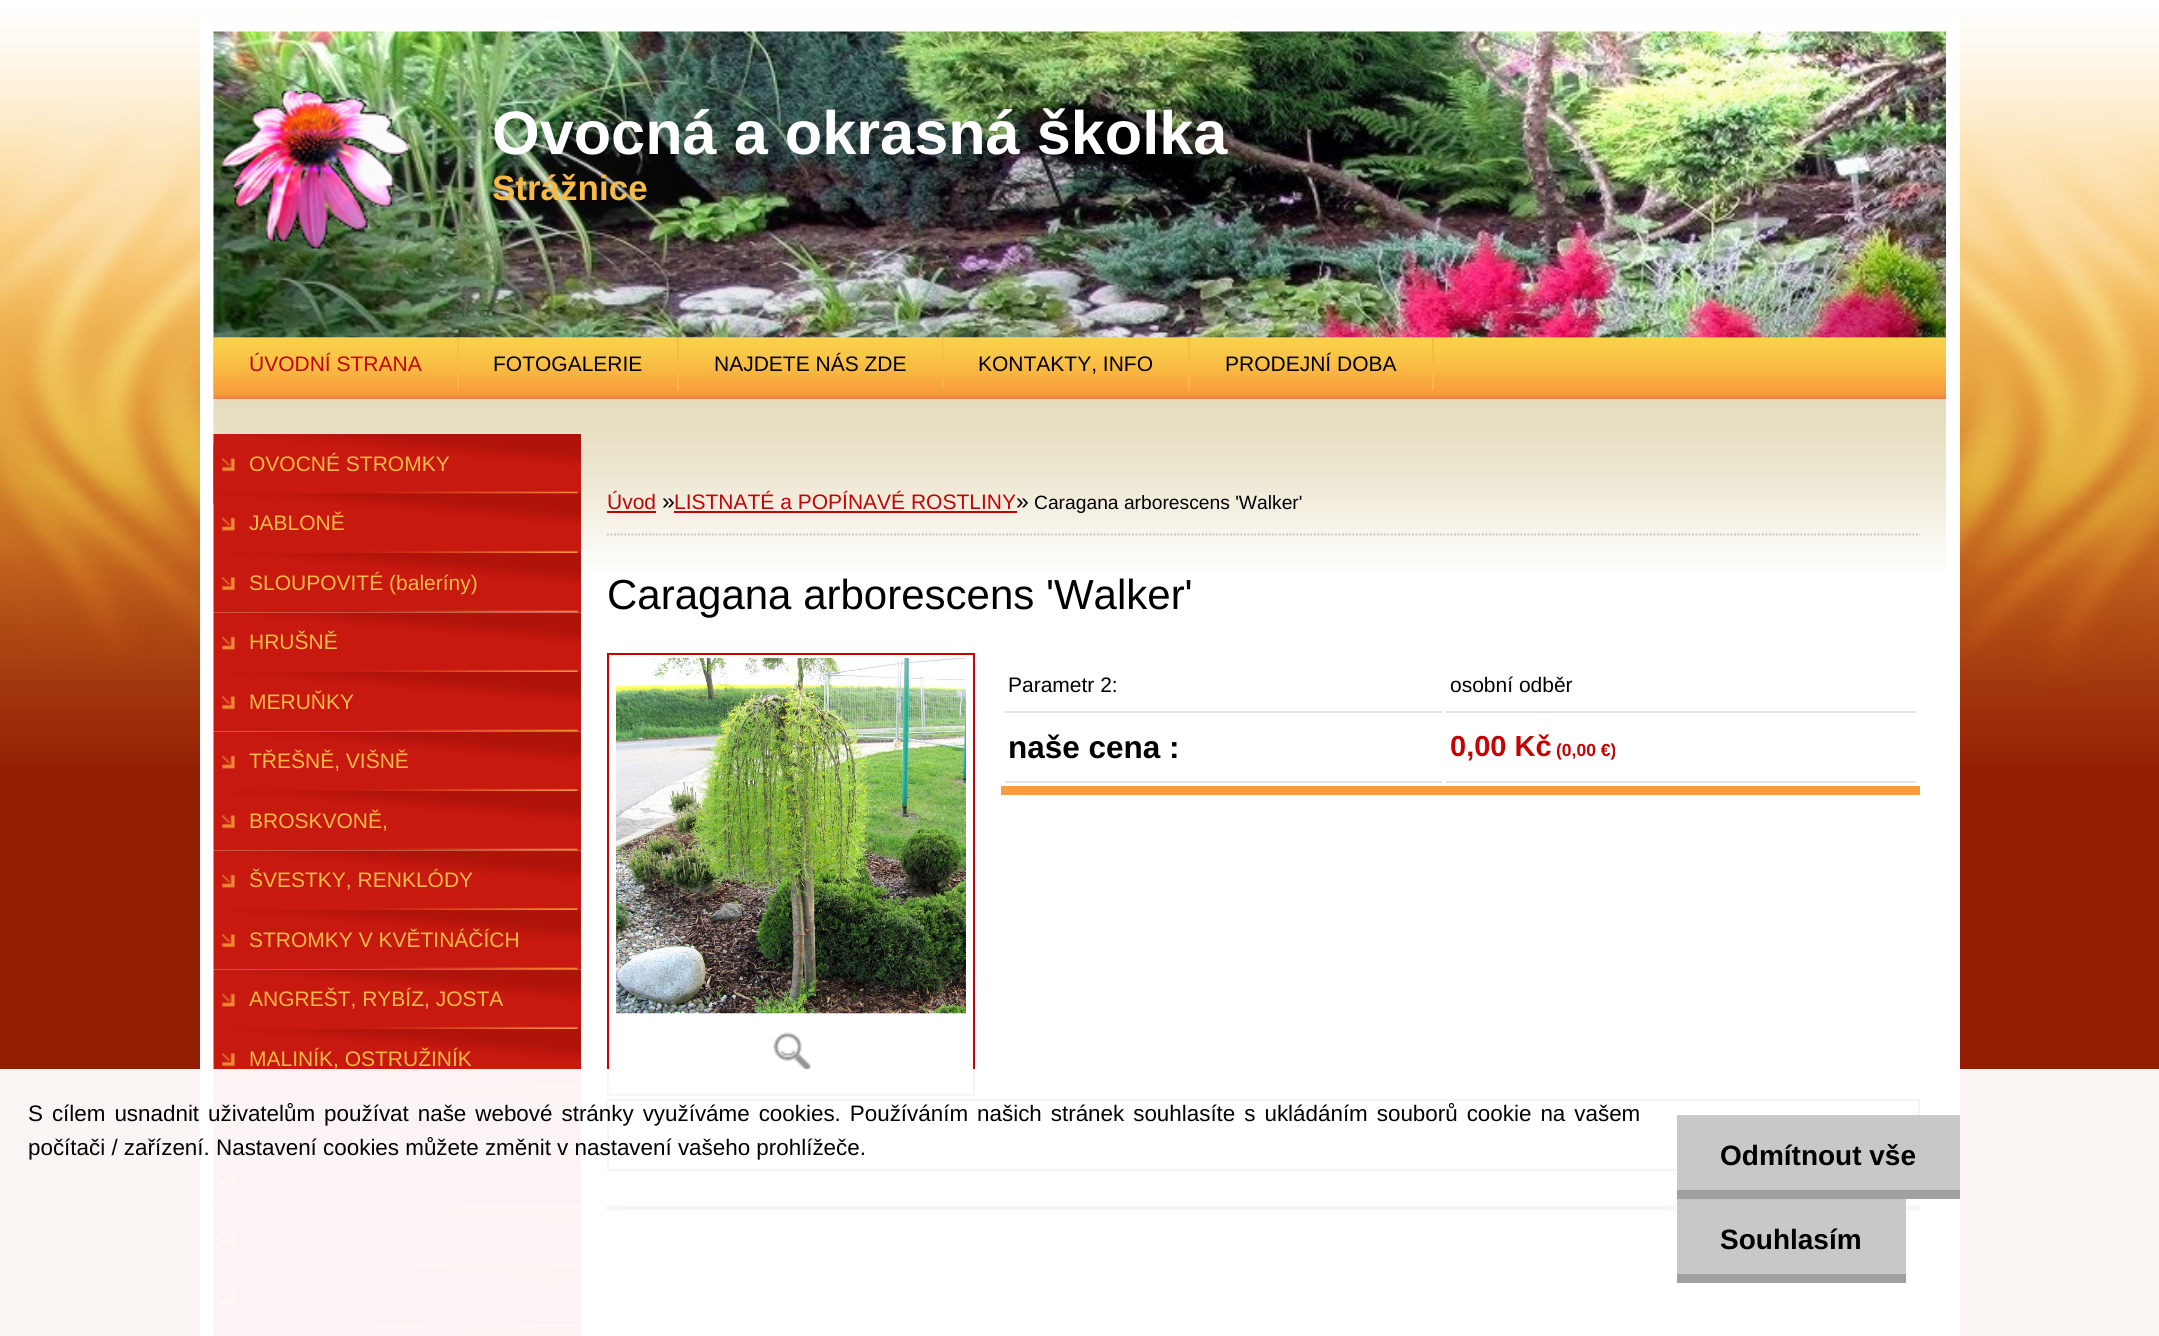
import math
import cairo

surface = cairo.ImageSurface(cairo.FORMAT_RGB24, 2159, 1336)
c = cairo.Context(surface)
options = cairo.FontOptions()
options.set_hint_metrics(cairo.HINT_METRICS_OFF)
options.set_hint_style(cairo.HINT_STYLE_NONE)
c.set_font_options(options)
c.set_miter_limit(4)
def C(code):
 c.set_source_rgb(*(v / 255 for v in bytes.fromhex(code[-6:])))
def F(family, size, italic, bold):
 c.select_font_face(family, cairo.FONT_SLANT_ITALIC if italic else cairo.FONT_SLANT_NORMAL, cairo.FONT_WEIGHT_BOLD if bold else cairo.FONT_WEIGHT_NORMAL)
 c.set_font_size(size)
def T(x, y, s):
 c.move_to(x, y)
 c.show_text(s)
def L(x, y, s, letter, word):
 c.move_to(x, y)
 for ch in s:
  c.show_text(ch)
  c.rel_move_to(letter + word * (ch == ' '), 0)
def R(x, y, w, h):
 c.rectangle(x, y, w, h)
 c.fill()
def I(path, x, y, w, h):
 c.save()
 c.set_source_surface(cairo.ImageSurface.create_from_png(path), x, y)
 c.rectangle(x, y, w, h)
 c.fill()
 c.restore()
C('921e03')
c.paint()
I('1.png',0,0,2159,766)
C('ffffff')
R(200,18,1760,1318)
I('2.png',213,31,1733,307)
I('3.png',222,91,186,158)
F('Liberation Sans',61.25,0,1)
T(492,154,'Ovocná a okrasná školka')
F('Liberation Sans',35,0,1)
C('f6ba46')
T(492,200,'Strážnice')
I('8.png',213,337,1733,235)
I('4.png',213,337,1733,62)
I('5.png',213,337,246,54)
C('f9ba43')
R(457,338,2,52)
F('Liberation Sans',21,0,0)
C('c30405')
T(249,371,'ÚVODNÍ STRANA')
I('6.png',458,337,221,53)
C('f9ba43')
R(677,338,2,52)
C('000000')
T(493,371,'FOTOGALERIE')
c.set_source_rgba(0.969,0.812,0.298,0.25)
R(679,337,264,1)
C('f9ba43')
R(942,338,2,52)
C('000000')
T(714,371,'NAJDETE NÁS ZDE')
I('7.png',943,337,247,53)
C('f9ba43')
R(1188,338,2,52)
C('000000')
T(978,371,'KONTAKTY, INFO')
c.set_source_rgba(0.969,0.812,0.298,0.25)
R(1190,337,243,1)
C('f9ba43')
R(1432,338,2,52)
C('000000')
T(1225,371,'PRODEJNÍ DOBA')
I('9.png',213,441,368,63)
I('10.png',213,434,368,60)
C('f6ba46')
T(249,471,'OVOCNÉ STROMKY')
I('11.png',213,493,368,60)
T(249,530,'JABLONĚ')
I('12.png',213,553,368,60)
T(249,590,'SLOUPOVITÉ (baleríny)')
I('13.png',213,612,368,60)
T(249,649,'HRUŠNĚ')
I('14.png',213,672,368,60)
T(249,709,'MERUŇKY')
I('13.png',213,731,368,60)
T(249,768,'TŘEŠNĚ, VIŠNĚ')
I('14.png',213,791,368,60)
T(249,828,'BROSKVONĚ,')
I('13.png',213,850,368,60)
T(249,887,'ŠVESTKY, RENKLÓDY')
I('14.png',213,910,368,60)
T(249,947,'STROMKY V KVĚTINÁČÍCH')
I('13.png',213,969,368,60)
T(249,1006,'ANGREŠT, RYBÍZ, JOSTA')
I('14.png',213,1029,368,60)
T(249,1066,'MALINÍK, OSTRUŽINÍK')
I('13.png',213,1088,368,60)
I('14.png',213,1148,368,60)
I('13.png',213,1207,368,60)
I('14.png',213,1267,368,60)
I('15.png',213,1326,368,10)
c.new_path()
c.move_to(607,534.5)
c.line_to(1920,534.5)
C('c0c0c0')
c.set_line_width(1.8)
c.set_dash([1.75,1.75])
c.stroke()
C('c30405')
T(607,509,'Úvod')
R(607,511,49,2)
F('Liberation Sans',23,0,0)
C('000000')
T(662,509,'»')
F('Liberation Sans',21,0,0)
C('c30405')
T(674,509,'LISTNATÉ a POPÍNAVÉ ROSTLINY')
R(674,511,343,2)
F('Liberation Sans',23,0,0)
C('000000')
T(1016,509,'»')
F('Liberation Sans',19.25,0,0)
T(1034,509,'Caragana arborescens \'Walker\'')
F('Liberation Sans',42,0,0)
T(607,609,'Caragana arborescens \'Walker\'')
c.rectangle(608,654,366,441)
C('c30405')
c.set_line_width(2)
c.set_dash([])
c.stroke()
I('16.png',616,658,350,356)
I('17.png',773,1032,38,39)
C('f89d3c')
R(1001,786,919,9)
C('e2e2e2')
R(1005,711,437,2)
F('Liberation Sans',21,0,0)
C('000000')
T(1008,692,'Parametr 2:')
C('e2e2e2')
R(1446,711,470,2)
C('000000')
T(1450,692,'osobní odběr')
C('e2e2e2')
R(1005,781,437,2)
F('Liberation Sans',31.5,0,1)
C('000000')
T(1008,758,'naše cena :')
C('e2e2e2')
R(1446,781,470,2)
F('Liberation Sans',29,0,1)
C('c30405')
T(1450,756,'0,00 Kč')
F('Liberation Sans',17.5,0,1)
T(1556,756,'(0,00 €)')
c.rectangle(608,1100,1311,70)
C('9c0103')
c.stroke()
R(607,1206,1313,4)
c.set_source_rgba(1,1,1,0.95)
R(0,1069,2159,267)
F('Liberation Sans',22.4,0,0)
C('000000')
L(28,1121,'S cílem usnadnit uživatelům používat naše webové stránky využíváme cookies. Používáním našich stránek souhlasíte s ukládáním souborů cookie na vašem',0,2.75)
T(28,1155,'počítači / zařízení. Nastavení cookies můžete změnit v nastavení vašeho prohlížeče.')
C('c8c8c8')
R(1677,1115,283,75)
C('a0a0a0')
R(1677,1190,283,9)
F('Liberation Sans',28,0,1)
C('000000')
T(1720,1165,'Odmítnout vše')
C('c8c8c8')
R(1677,1199,229,75)
C('a0a0a0')
R(1677,1274,229,9)
C('000000')
T(1720,1249,'Souhlasím')
surface.write_to_png('o.png')
